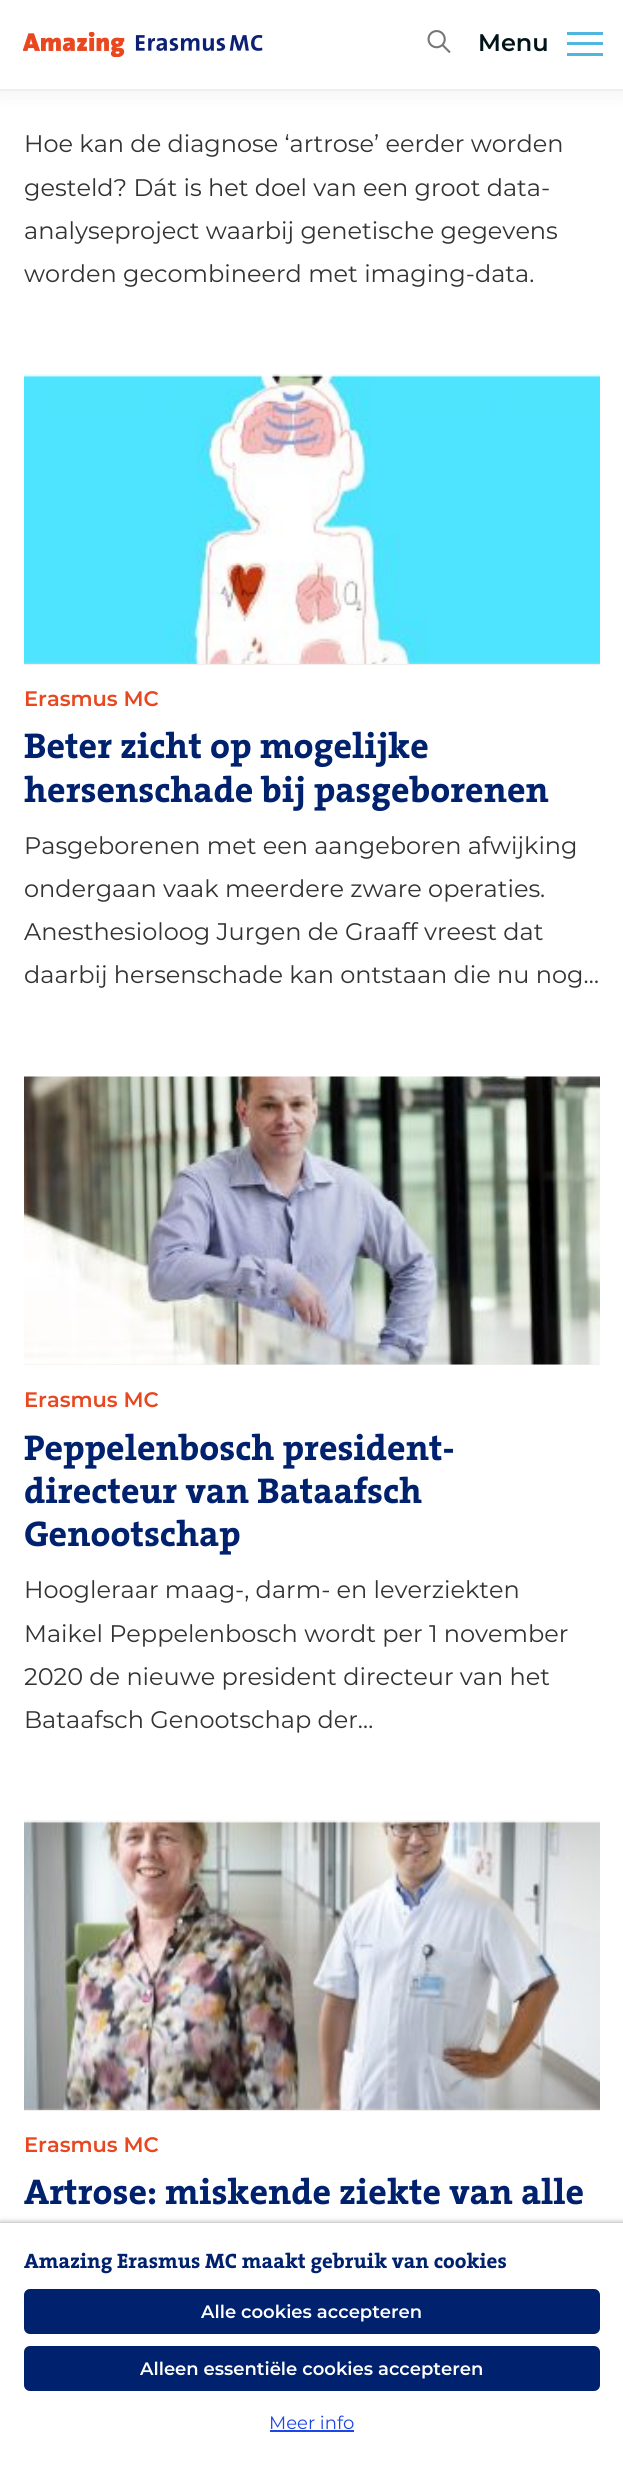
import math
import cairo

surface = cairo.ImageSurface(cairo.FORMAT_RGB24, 623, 2466)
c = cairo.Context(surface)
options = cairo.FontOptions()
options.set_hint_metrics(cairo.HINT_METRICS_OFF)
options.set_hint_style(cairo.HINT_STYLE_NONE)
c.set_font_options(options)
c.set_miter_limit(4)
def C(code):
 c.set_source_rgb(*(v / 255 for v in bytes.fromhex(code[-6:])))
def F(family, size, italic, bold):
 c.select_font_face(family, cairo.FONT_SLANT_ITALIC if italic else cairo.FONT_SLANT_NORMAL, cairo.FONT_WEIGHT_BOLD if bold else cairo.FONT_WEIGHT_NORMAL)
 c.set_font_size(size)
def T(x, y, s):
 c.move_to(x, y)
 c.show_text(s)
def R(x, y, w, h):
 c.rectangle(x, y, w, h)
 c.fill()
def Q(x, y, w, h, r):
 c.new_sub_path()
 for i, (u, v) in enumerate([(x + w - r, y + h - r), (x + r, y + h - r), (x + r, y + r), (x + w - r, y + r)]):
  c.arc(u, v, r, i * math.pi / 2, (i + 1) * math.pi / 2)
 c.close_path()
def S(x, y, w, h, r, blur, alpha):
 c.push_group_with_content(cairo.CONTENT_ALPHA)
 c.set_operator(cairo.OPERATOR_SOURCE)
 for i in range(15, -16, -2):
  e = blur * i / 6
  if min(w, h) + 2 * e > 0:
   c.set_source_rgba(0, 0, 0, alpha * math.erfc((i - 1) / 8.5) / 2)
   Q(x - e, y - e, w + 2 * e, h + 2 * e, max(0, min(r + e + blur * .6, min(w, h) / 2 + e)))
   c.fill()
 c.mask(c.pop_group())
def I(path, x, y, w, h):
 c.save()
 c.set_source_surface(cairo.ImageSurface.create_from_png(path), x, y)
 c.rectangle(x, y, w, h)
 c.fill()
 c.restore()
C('ffffff')
c.paint()
C('000000')
S(-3,-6,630,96,0,12,.07)
C('ffffff')
R(0,0,623,89)
C('f2eeeb')
R(0,89,623,2)
I('1.png',23,32,240,25)
I('2.png',427,30,24,24)
F('Montserrat SemiBold',24,0,0)
C('001419')
T(478,51,'Menu')
C('50b6dd')
R(567,42,36,3)
R(567,32,36,3)
R(567,53,36,3)
F('Montserrat',24,0,0)
C('333333')
T(24,152,'Hoe kan de diagnose ‘artrose’ eerder worden')
T(24,196,'gesteld? Dát is het doel van een groot data-')
T(24,239,'analyseproject waarbij genetische gegevens')
T(24,282,'worden gecombineerd met imaging-data.')
C('f2eeeb')
R(24,662,576,3)
I('3.png',24,374,576,290)
F('Montserrat SemiBold',21,0,0)
C('e84720')
T(24,706,'Erasmus MC')
F('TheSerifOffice',36,0,1)
C('00216d')
T(24,758,'Beter zicht op mogelijke')
T(24,802,'hersenschade bij pasgeborenen')
F('Montserrat',24,0,0)
C('333333')
T(24,854,'Pasgeborenen met een aangeboren afwijking')
T(24,897,'ondergaan vaak meerdere zware operaties.')
T(24,940,'Anesthesioloog Jurgen de Graaff vreest dat')
T(24,983,'daarbij hersenschade kan ontstaan die nu nog…')
C('f2eeeb')
R(24,1364,576,1)
I('4.png',24,1076,576,289)
F('Montserrat SemiBold',21,0,0)
C('e84720')
T(24,1407,'Erasmus MC')
F('TheSerifOffice',36,0,1)
C('00216d')
T(24,1460,'Peppelenbosch president-')
T(24,1503,'directeur van Bataafsch')
T(24,1546,'Genootschap')
F('Montserrat',24,0,0)
C('333333')
T(24,1598,'Hoogleraar maag-, darm- en leverziekten')
T(24,1642,'Maikel Peppelenbosch wordt per 1 november')
T(24,1685,'2020 de nieuwe president directeur van het')
T(24,1728,'Bataafsch Genootschap der…')
C('f2eeeb')
R(24,2108,576,3)
I('5.png',24,1820,576,290)
F('Montserrat SemiBold',21,0,0)
C('e84720')
T(24,2152,'Erasmus MC')
F('TheSerifOffice',36,0,1)
C('00216d')
T(24,2204,'Artrose: miskende ziekte van alle')
C('000000')
S(0,2223,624,243,0,3,.4)
C('ffffff')
R(0,2223,623,243)
F('TheSerifOffice',21,0,1)
C('00216d')
T(24,2268,'Amazing Erasmus MC maakt gebruik van cookies')
Q(25.5,2290.5,573,42,4.5)
c.fill_preserve()
c.set_line_width(3)
c.stroke()
F('Montserrat SemiBold',18,0,0)
C('ffffff')
T(201,2318,'Alle cookies accepteren')
C('00216d')
Q(25.5,2347.5,573,42,4.5)
c.fill_preserve()
c.stroke()
C('ffffff')
T(140,2375,'Alleen essentiële cookies accepteren')
F('Montserrat',18,0,0)
C('1e46e6')
T(269,2429,'Meer info')
R(270,2430,84,2)
surface.write_to_png('o.png')
